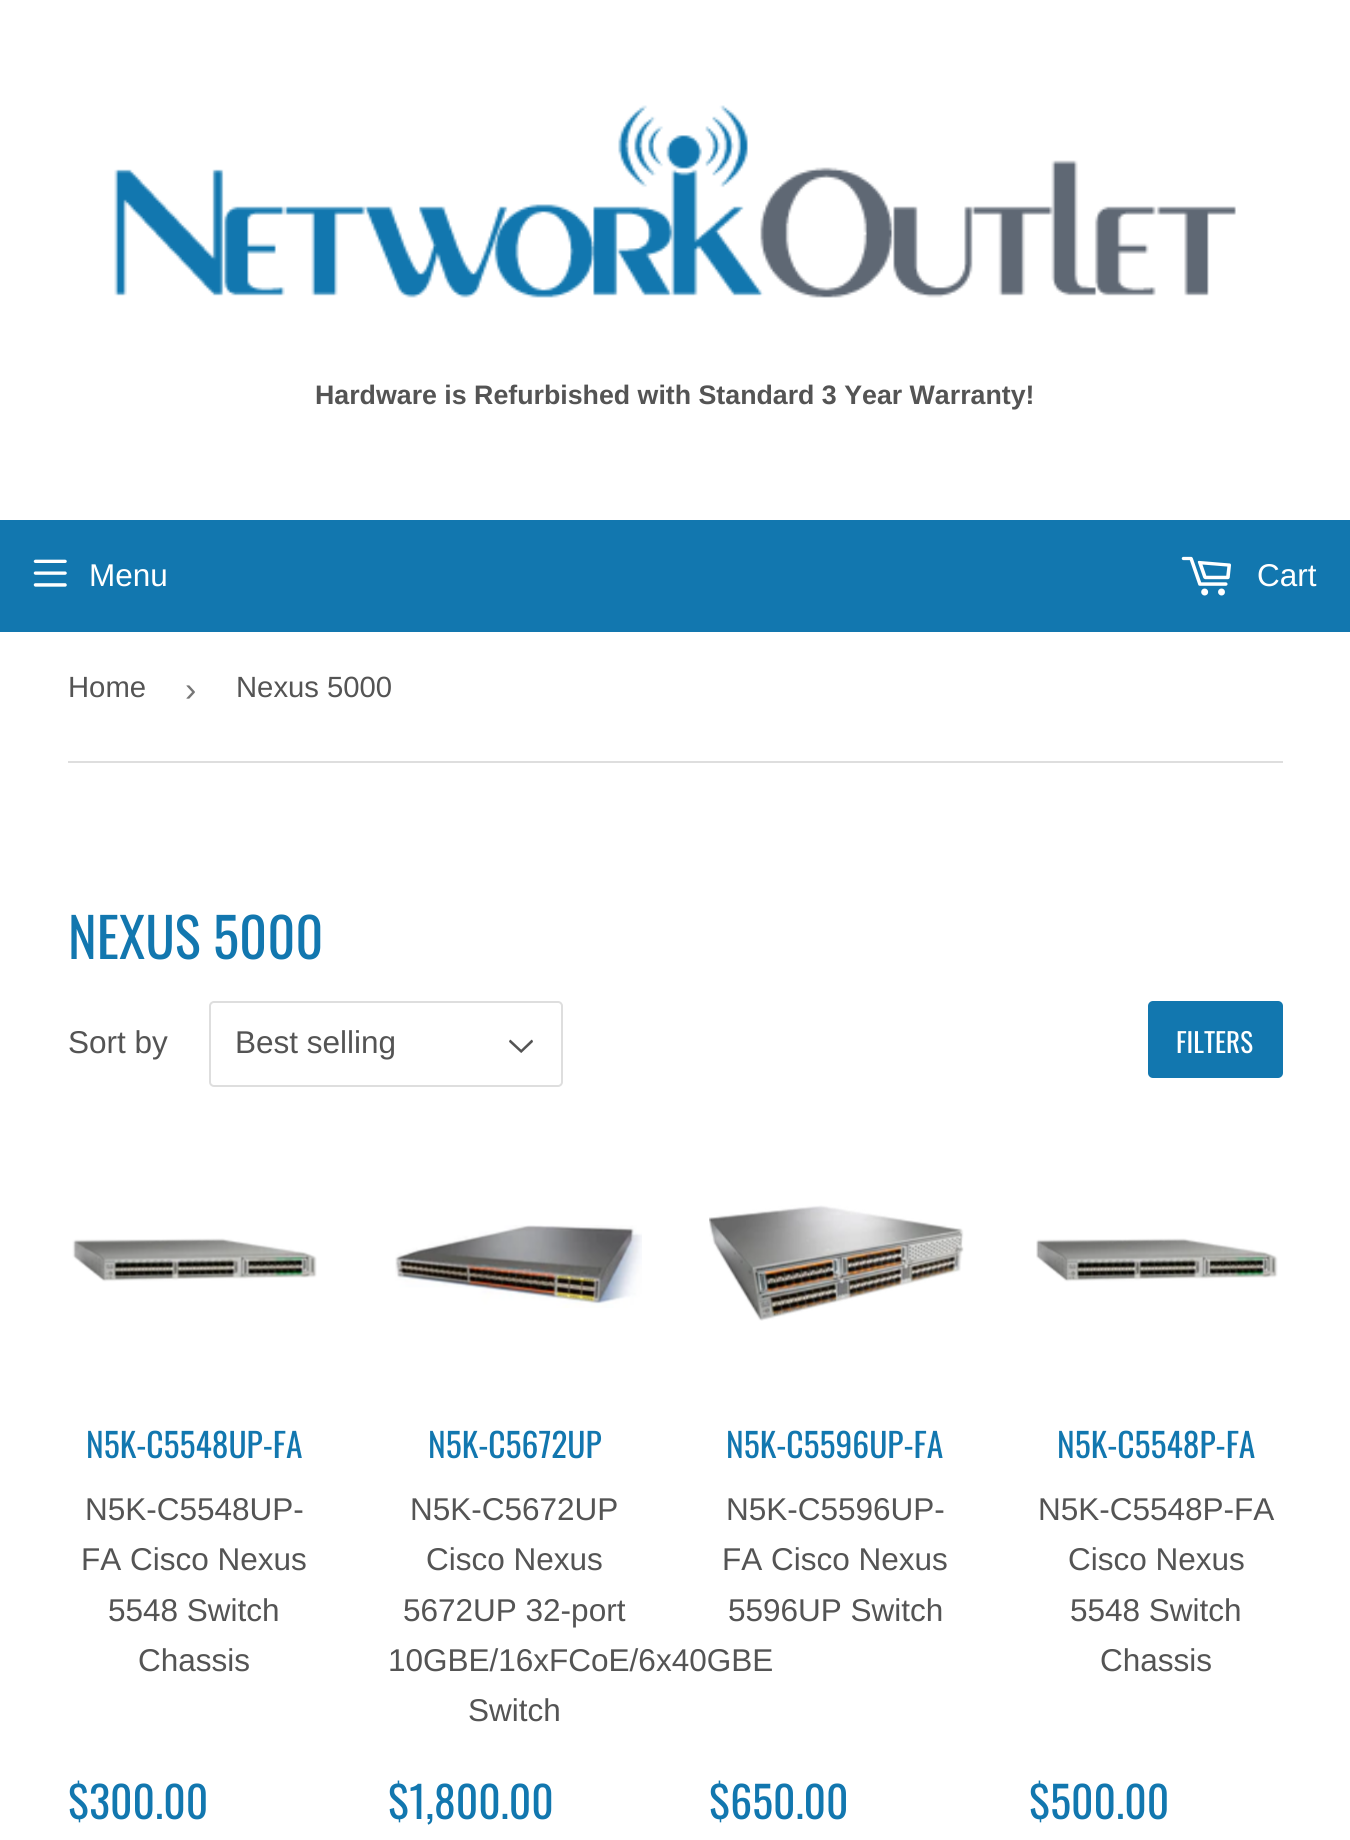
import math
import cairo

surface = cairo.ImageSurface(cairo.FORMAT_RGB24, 1350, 1840)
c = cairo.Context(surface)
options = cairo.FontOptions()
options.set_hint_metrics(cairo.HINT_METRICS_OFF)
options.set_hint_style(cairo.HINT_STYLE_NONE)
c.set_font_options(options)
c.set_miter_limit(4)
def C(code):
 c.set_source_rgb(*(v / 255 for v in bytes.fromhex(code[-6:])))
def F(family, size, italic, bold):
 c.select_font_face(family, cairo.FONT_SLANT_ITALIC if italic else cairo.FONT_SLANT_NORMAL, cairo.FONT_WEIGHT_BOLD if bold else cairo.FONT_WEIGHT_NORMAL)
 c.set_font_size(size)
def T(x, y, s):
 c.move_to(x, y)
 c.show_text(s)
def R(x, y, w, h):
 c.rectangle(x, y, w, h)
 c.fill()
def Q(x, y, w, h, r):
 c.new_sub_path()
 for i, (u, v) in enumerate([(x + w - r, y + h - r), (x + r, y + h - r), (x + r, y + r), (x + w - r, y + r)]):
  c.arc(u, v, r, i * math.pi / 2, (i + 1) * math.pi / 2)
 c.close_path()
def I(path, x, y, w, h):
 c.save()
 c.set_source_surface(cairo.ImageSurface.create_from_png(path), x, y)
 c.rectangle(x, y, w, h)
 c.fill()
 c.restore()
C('ffffff')
c.paint()
I('1.png',114,105,1122,193)
F('Arimo',26.75,0,1)
C('545454')
T(315,404,'Hardware is Refurbished with Standard 3 Year Warranty!')
C('1277af')
R(0,520,1350,112)
I('2.png',33,559,34,28)
F('Arimo',31.5,0,0)
C('ffffff')
T(89,586,'Menu')
I('3.png',1181,556,50,40)
T(1257,586,'Cart')
C('dedede')
R(68,761,1215,2)
F('Arimo',29.25,0,0)
C('545454')
T(68,697,'Home')
F('Liberation Sans',34,0,0)
C('767676')
T(185,701,'›')
F('Arimo',29.25,0,0)
C('545454')
T(236,697,'Nexus 5000')
F('Oswald',54.5,0,0)
C('1277af')
T(68,959,'NEXUS 5000')
F('Arimo',31.5,0,0)
C('545454')
T(68,1053,'Sort by')
I('4.png',509,1039,24,14)
Q(210,1002,352,84,4)
C('dedede')
c.stroke()
C('545454')
T(235,1053,'Best selling')
C('1277af')
Q(1148,1001,135,77,5)
c.fill()
F('Oswald',27,0,0)
C('ffffff')
T(1176,1053,'FILTERS')
I('5.png',72,1238,245,44)
F('Oswald',33.5,0,0)
C('1277af')
T(86,1458,'N5K-C5548UP-FA')
F('Arimo',31.5,0,0)
C('545454')
T(85,1520,'N5K-C5548UP-')
T(81,1570,'FA Cisco Nexus')
T(108,1621,'5548 Switch')
T(138,1671,'Chassis')
F('Oswald',43.5,0,0)
C('1277af')
T(68,1819,'$300.00')
I('6.png',395,1225,247,83)
F('Oswald',33.5,0,0)
T(428,1458,'N5K-C5672UP')
F('Arimo',31.5,0,0)
C('545454')
T(410,1520,'N5K-C5672UP')
T(426,1570,'Cisco Nexus')
T(403,1621,'5672UP 32-port')
T(388,1671,'10GBE/16xFCoE/6x40GBE')
T(468,1721,'Switch')
F('Oswald',43.5,0,0)
C('1277af')
T(388,1819,'$1,800.00')
I('7.png',709,1205,255,116)
F('Oswald',33.5,0,0)
T(726,1458,'N5K-C5596UP-FA')
F('Arimo',31.5,0,0)
C('545454')
T(726,1520,'N5K-C5596UP-')
T(722,1570,'FA Cisco Nexus')
T(728,1621,'5596UP Switch')
F('Oswald',43.5,0,0)
C('1277af')
T(709,1819,'$650.00')
I('8.png',1036,1238,242,44)
F('Oswald',33.5,0,0)
T(1057,1458,'N5K-C5548P-FA')
F('Arimo',31.5,0,0)
C('545454')
T(1038,1520,'N5K-C5548P-FA')
T(1068,1570,'Cisco Nexus')
T(1070,1621,'5548 Switch')
T(1100,1671,'Chassis')
F('Oswald',43.5,0,0)
C('1277af')
T(1029,1819,'$500.00')
surface.write_to_png('o.png')
